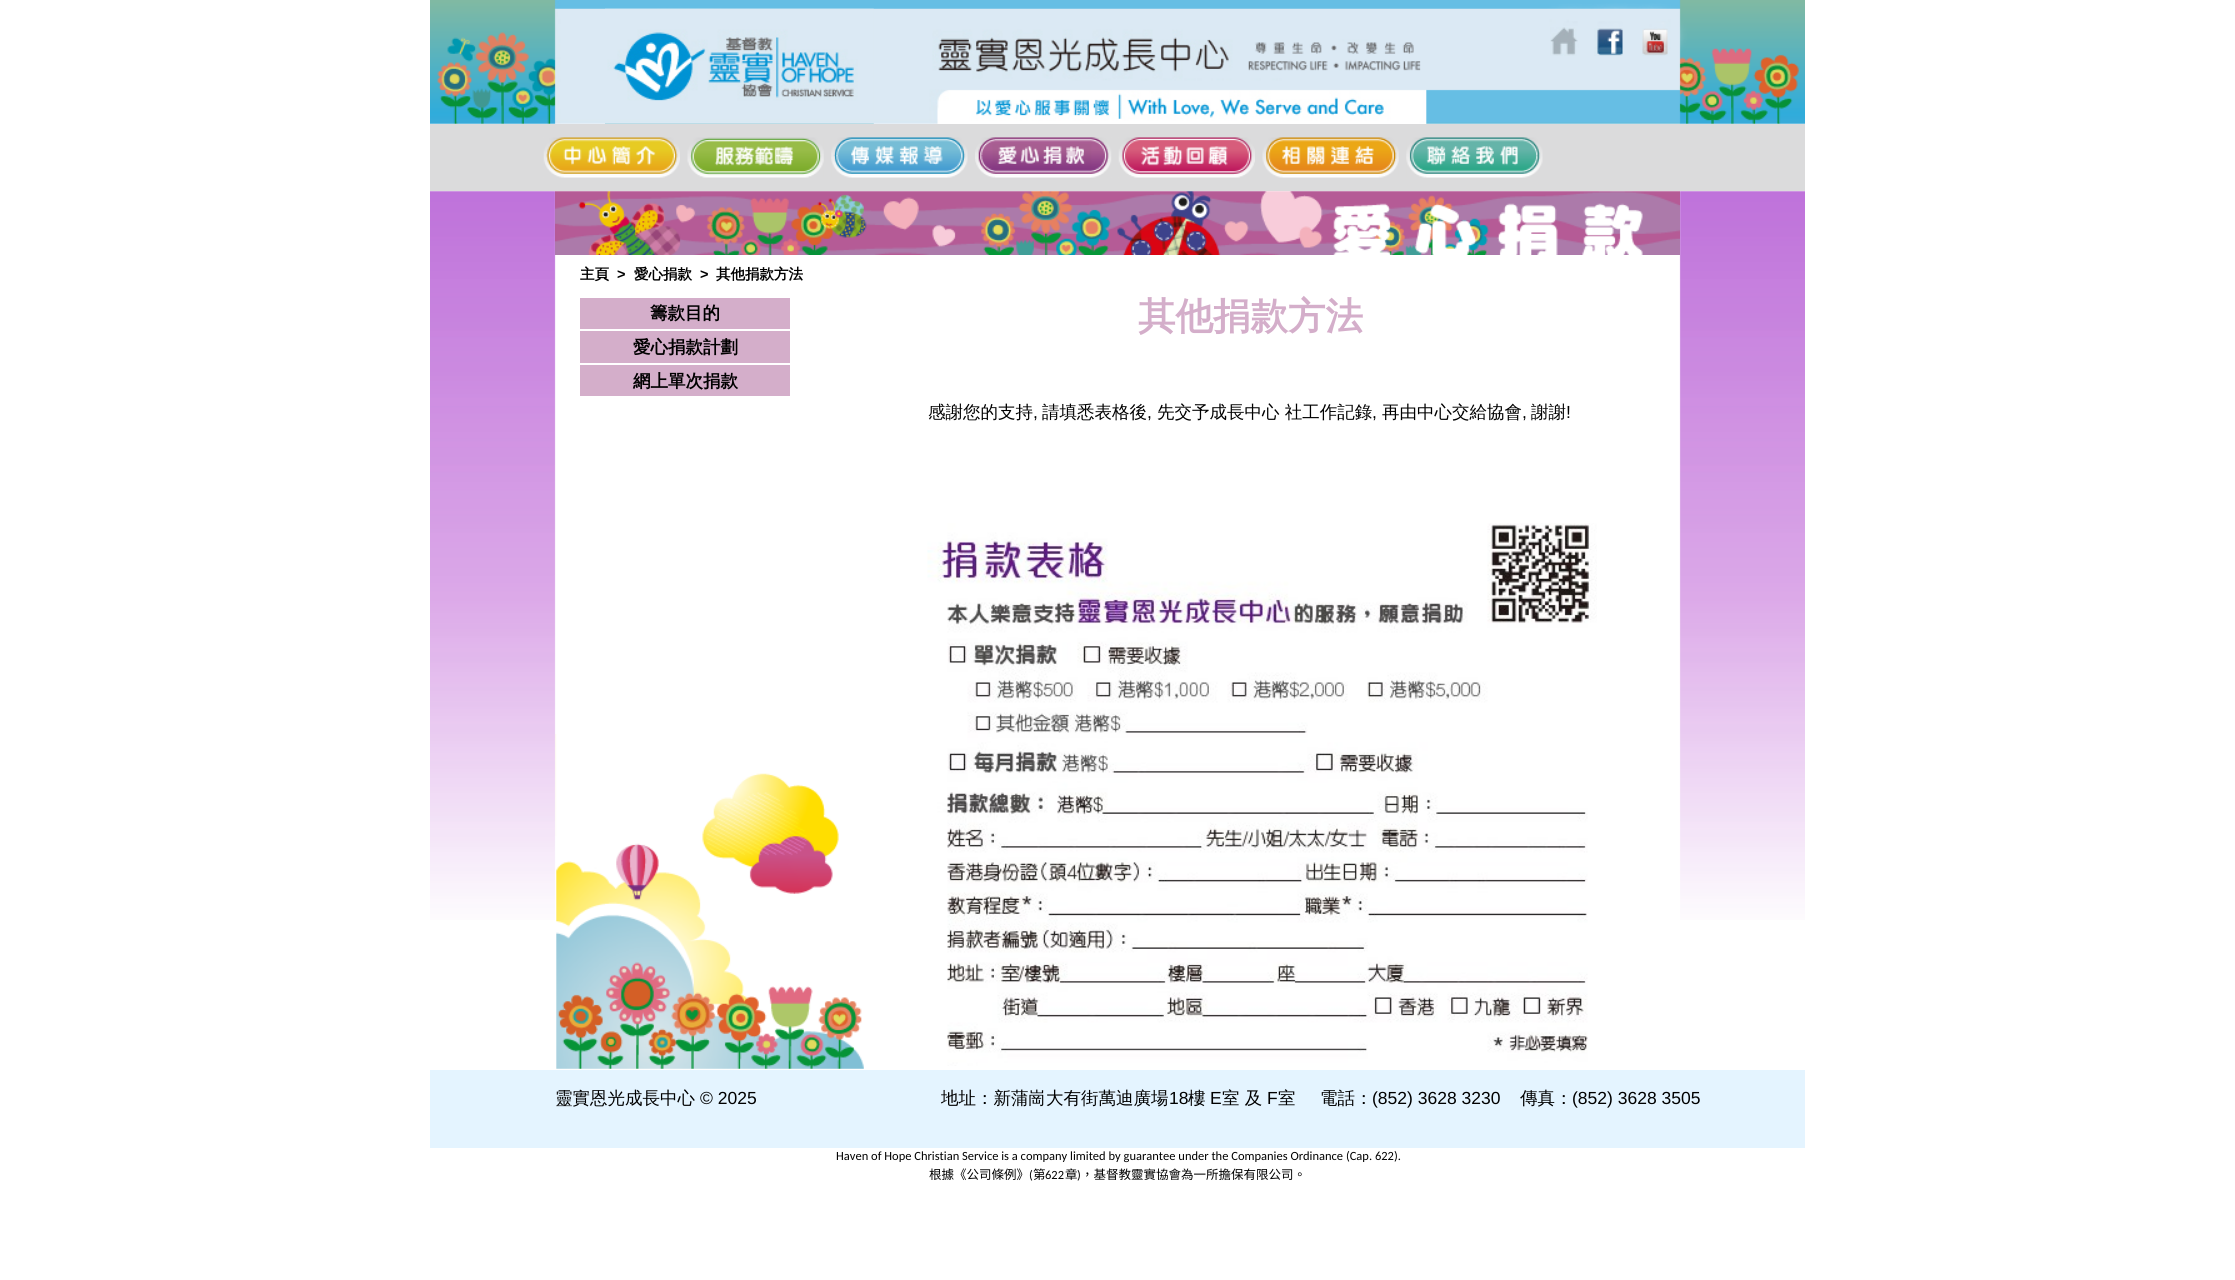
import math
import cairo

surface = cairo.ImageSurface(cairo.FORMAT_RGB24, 2235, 1280)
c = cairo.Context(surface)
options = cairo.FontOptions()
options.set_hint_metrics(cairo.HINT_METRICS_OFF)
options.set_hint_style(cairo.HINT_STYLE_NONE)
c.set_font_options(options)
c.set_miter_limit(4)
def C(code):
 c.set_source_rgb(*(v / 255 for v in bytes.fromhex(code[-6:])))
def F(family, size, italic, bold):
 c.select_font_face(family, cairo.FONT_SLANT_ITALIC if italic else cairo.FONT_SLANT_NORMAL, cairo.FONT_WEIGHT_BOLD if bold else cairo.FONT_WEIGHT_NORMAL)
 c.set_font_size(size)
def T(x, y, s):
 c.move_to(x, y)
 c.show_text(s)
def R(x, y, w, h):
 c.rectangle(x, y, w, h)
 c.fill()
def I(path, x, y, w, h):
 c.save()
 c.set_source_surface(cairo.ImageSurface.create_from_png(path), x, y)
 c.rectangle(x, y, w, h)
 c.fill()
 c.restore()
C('ffffff')
c.paint()
I('1.png',430,0,1375,124)
I('2.png',605,8,269,116)
I('3.png',1550,27,28,29)
I('4.png',1594,28,29,28)
I('5.png',1642,28,26,28)
C('dbdbdc')
R(430,124,1375,67)
I('6.png',543,137,137,41)
I('7.png',687,137,137,41)
I('8.png',831,137,137,41)
I('9.png',975,137,137,41)
I('10.png',1118,137,137,41)
I('11.png',1262,137,137,41)
I('12.png',1406,137,137,41)
I('16.png',555,734,309,335)
I('13.png',430,191,1375,729)
I('14.png',555,191,1125,64)
F('WenQuanYi Zen Hei',14.5,0,1)
C('000000')
T(580,279,'主頁')
F('Liberation Sans',14.5,0,1)
T(617,279,'>')
F('WenQuanYi Zen Hei',14.5,0,1)
T(634,279,'愛心捐款')
F('Liberation Sans',14.5,0,1)
T(700,279,'>')
F('WenQuanYi Zen Hei',14.5,0,1)
T(716,279,'其他捐款方法')
C('d4aeca')
R(580,298,210,31)
F('WenQuanYi Zen Hei',17.5,0,1)
C('000000')
T(650,319,'籌款目的')
C('d4aeca')
R(580,331,210,32)
C('000000')
T(633,353,'愛心捐款計劃')
C('d4aeca')
R(580,365,210,31)
C('000000')
T(633,387,'網上單次捐款')
F('WenQuanYi Zen Hei',37.5,0,1)
C('d4aeca')
T(1138,329,'其他捐款方法')
F('WenQuanYi Zen Hei Medium',17.5,0,0)
C('000000')
T(928,418,'感謝您的支持')
T(1042,418,'請填悉表格後')
T(1157,418,'先交予成長中心 社工作記錄')
T(1382,418,'再由中心交給協會')
T(1531,418,'謝謝')
F('Liberation Sans',17.5,0,0)
T(1566,418,'!')
T(1033,418,',')
T(1147,418,',')
T(1372,418,',')
T(1522,418,',')
I('15.png',927,523,670,543)
C('e4f4ff')
R(430,1070,1375,78)
F('WenQuanYi Zen Hei Medium',17.5,0,0)
C('000000')
T(555,1104,'靈實恩光成長中心')
F('Liberation Sans',17.5,0,0)
T(700,1104,'© 2025')
F('WenQuanYi Zen Hei Medium',17.5,0,0)
T(941,1104,'地址：新蒲崗大有街萬迪廣場')
F('Liberation Sans',17.5,0,0)
T(1169,1104,'18')
F('WenQuanYi Zen Hei Medium',17.5,0,0)
T(1188,1104,'樓')
F('Liberation Sans',17.5,0,0)
T(1210,1104,'E')
F('WenQuanYi Zen Hei Medium',17.5,0,0)
T(1222,1104,'室 及')
F('Liberation Sans',17.5,0,0)
T(1267,1104,'F')
F('WenQuanYi Zen Hei Medium',17.5,0,0)
T(1278,1104,'室')
T(1320,1104,'電話：')
F('Liberation Sans',17.5,0,0)
T(1372,1104,'(852) 3628 3230')
F('WenQuanYi Zen Hei Medium',17.5,0,0)
T(1520,1104,'傳真：')
F('Liberation Sans',17.5,0,0)
T(1572,1104,'(852) 3628 3505')
F('Carlito',12.5,0,0)
T(836,1160,'Haven of Hope Christian Service is a company limited by guarantee under the Companies Ordinance (Cap. 622).')
F('Noto Sans CJK HK',12.5,0,0)
T(929,1179,'根據《公司條例》')
F('Carlito',12.5,0,0)
T(1029,1179,'(')
F('Noto Sans CJK HK',12.5,0,0)
T(1033,1179,'第')
F('Carlito',12.5,0,0)
T(1045,1179,'622')
F('Noto Sans CJK HK',12.5,0,0)
T(1065,1179,'章')
F('Carlito',12.5,0,0)
T(1077,1179,')')
F('Noto Sans CJK HK',12.5,0,0)
T(1081,1179,'，基督教靈實協會為一所擔保有限公司。')
surface.write_to_png('o.png')
